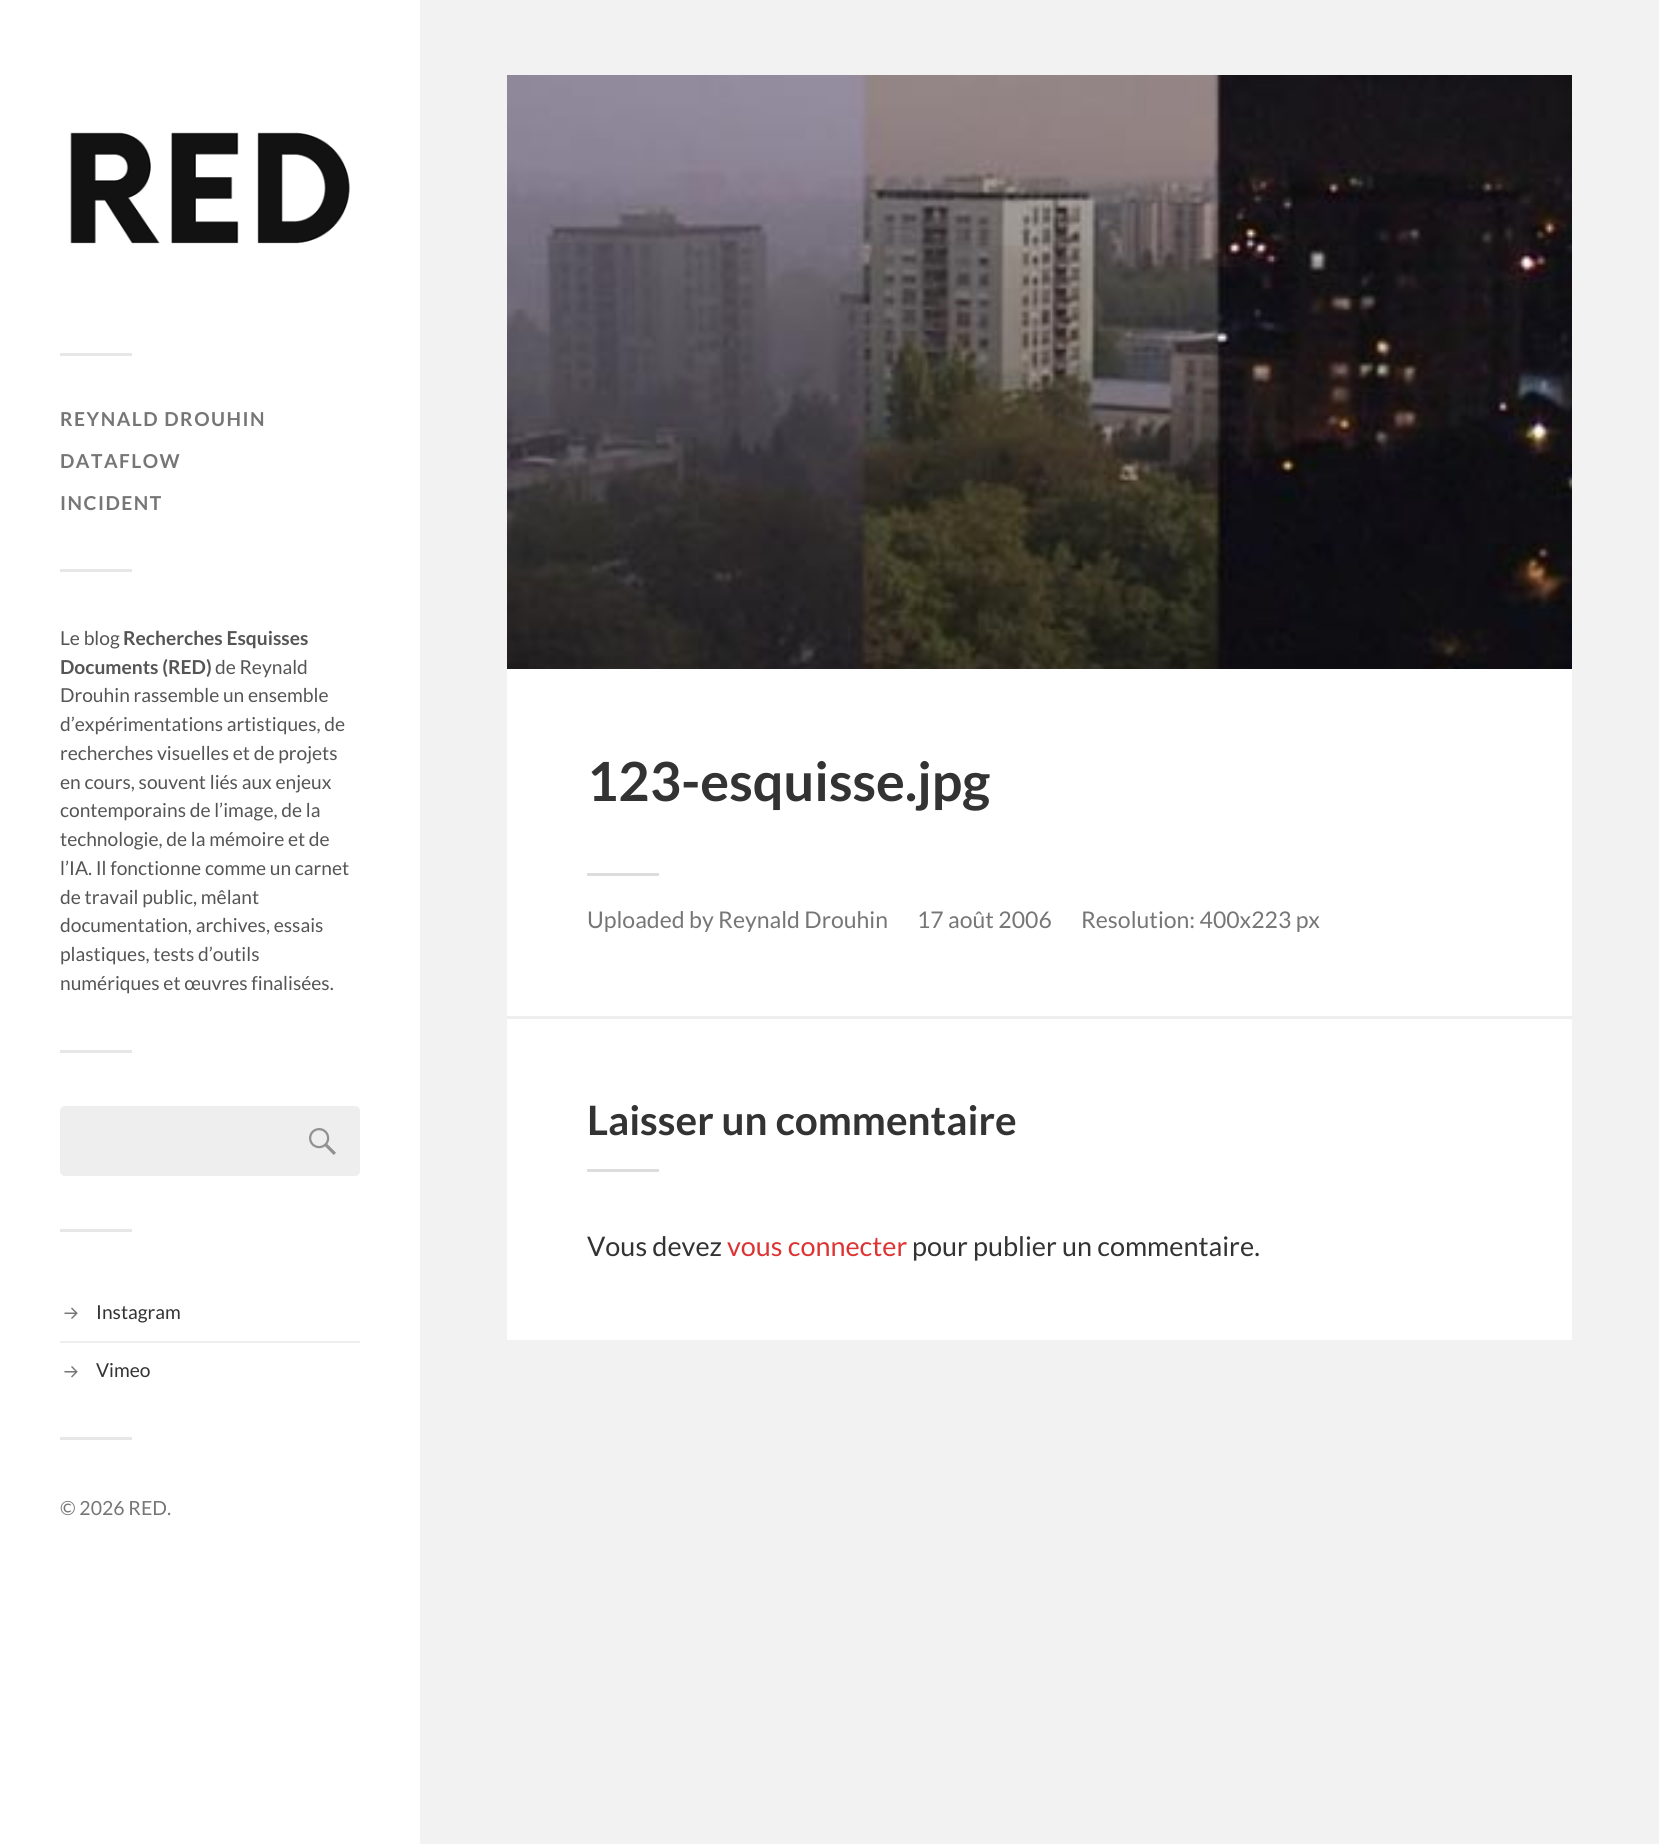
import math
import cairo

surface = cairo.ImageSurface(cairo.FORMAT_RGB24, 1659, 1844)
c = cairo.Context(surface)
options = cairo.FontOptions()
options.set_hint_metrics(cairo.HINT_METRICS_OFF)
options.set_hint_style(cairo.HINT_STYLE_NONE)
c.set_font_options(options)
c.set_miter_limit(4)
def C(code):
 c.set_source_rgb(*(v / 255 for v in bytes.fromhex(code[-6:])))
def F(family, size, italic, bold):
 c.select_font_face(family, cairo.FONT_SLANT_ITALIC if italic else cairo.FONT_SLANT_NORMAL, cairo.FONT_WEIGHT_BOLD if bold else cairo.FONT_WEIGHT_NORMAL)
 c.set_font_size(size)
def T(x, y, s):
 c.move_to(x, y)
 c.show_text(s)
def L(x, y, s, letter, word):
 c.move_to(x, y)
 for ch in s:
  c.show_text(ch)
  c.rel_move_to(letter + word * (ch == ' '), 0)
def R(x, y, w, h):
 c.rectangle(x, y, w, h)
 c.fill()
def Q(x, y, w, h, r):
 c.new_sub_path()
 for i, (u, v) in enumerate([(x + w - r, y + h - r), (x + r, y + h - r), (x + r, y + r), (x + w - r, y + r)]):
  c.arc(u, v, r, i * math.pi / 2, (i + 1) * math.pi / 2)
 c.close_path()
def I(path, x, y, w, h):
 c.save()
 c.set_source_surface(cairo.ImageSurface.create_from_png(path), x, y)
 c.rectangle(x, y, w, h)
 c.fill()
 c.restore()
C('f2f2f2')
c.paint()
C('ffffff')
R(0,0,420,1844)
I('1.png',70,132,280,112)
C('e7e7e7')
R(60,353,72,3)
F('Lato',19.2,0,1)
C('767676')
L(60,426,'REYNALD DROUHIN',1.5,0)
L(60,468,'DATAFLOW',1.5,0)
L(60,510,'INCIDENT',1.5,0)
C('e7e7e7')
R(60,569,72,3)
F('Lato',19.2,0,0)
C('555555')
T(60,645,'Le blog')
F('Lato',19.2,0,1)
T(123,645,'Recherches Esquisses')
T(60,674,'Documents (RED)')
F('Lato',19.2,0,0)
T(215,674,'de Reynald')
T(60,702,'Drouhin rassemble un ensemble')
T(60,731,'d’expérimentations artistiques, de')
T(60,760,'recherches visuelles et de projets')
T(60,789,'en cours, souvent liés aux enjeux')
T(60,817,'contemporains de l’image, de la')
T(60,846,'technologie, de la mémoire et de')
T(60,875,'l’IA. Il fonctionne comme un carnet')
T(60,904,'de travail public, mêlant')
T(60,932,'documentation, archives, essais')
T(60,961,'plastiques, tests d’outils')
T(60,990,'numériques et œuvres finalisées.')
C('e7e7e7')
R(60,1050,72,3)
C('eeeeee')
Q(60,1106,300,70,5)
c.fill()
I('2.png',309,1128,27,27)
C('e7e7e7')
R(60,1229,72,3)
C('eeeeee')
R(60,1341,300,2)
I('3.png',64,1307,14,12)
C('333333')
T(96,1319,'Instagram')
I('4.png',64,1366,14,12)
T(96,1377,'Vimeo')
C('e7e7e7')
R(60,1437,72,3)
F('Lato',19.5,0,0)
C('767676')
T(60,1515,'© 2026 RED.')
C('ffffff')
R(507,669,1065,671)
I('5.png',507,75,1065,594)
F('Lato',54,0,1)
C('333333')
T(587,801,'123-esquisse.jpg')
C('dddddd')
R(587,873,72,3)
F('Lato',23,0,0)
C('767676')
T(587,928,'Uploaded by Reynald Drouhin')
T(917,928,'17 août 2006')
T(1081,928,'Resolution: 400x223 px')
C('eeeeee')
R(507,1016,1065,3)
F('Lato',40.5,0,1)
C('333333')
T(587,1135,'Laisser un commentaire')
C('dddddd')
R(587,1169,72,3)
F('Lato',27,0,0)
C('333333')
T(587,1256,'Vous devez')
C('dd3333')
T(727,1256,'vous connecter')
C('333333')
T(912,1256,'pour publier un commentaire.')
surface.write_to_png('o.png')
